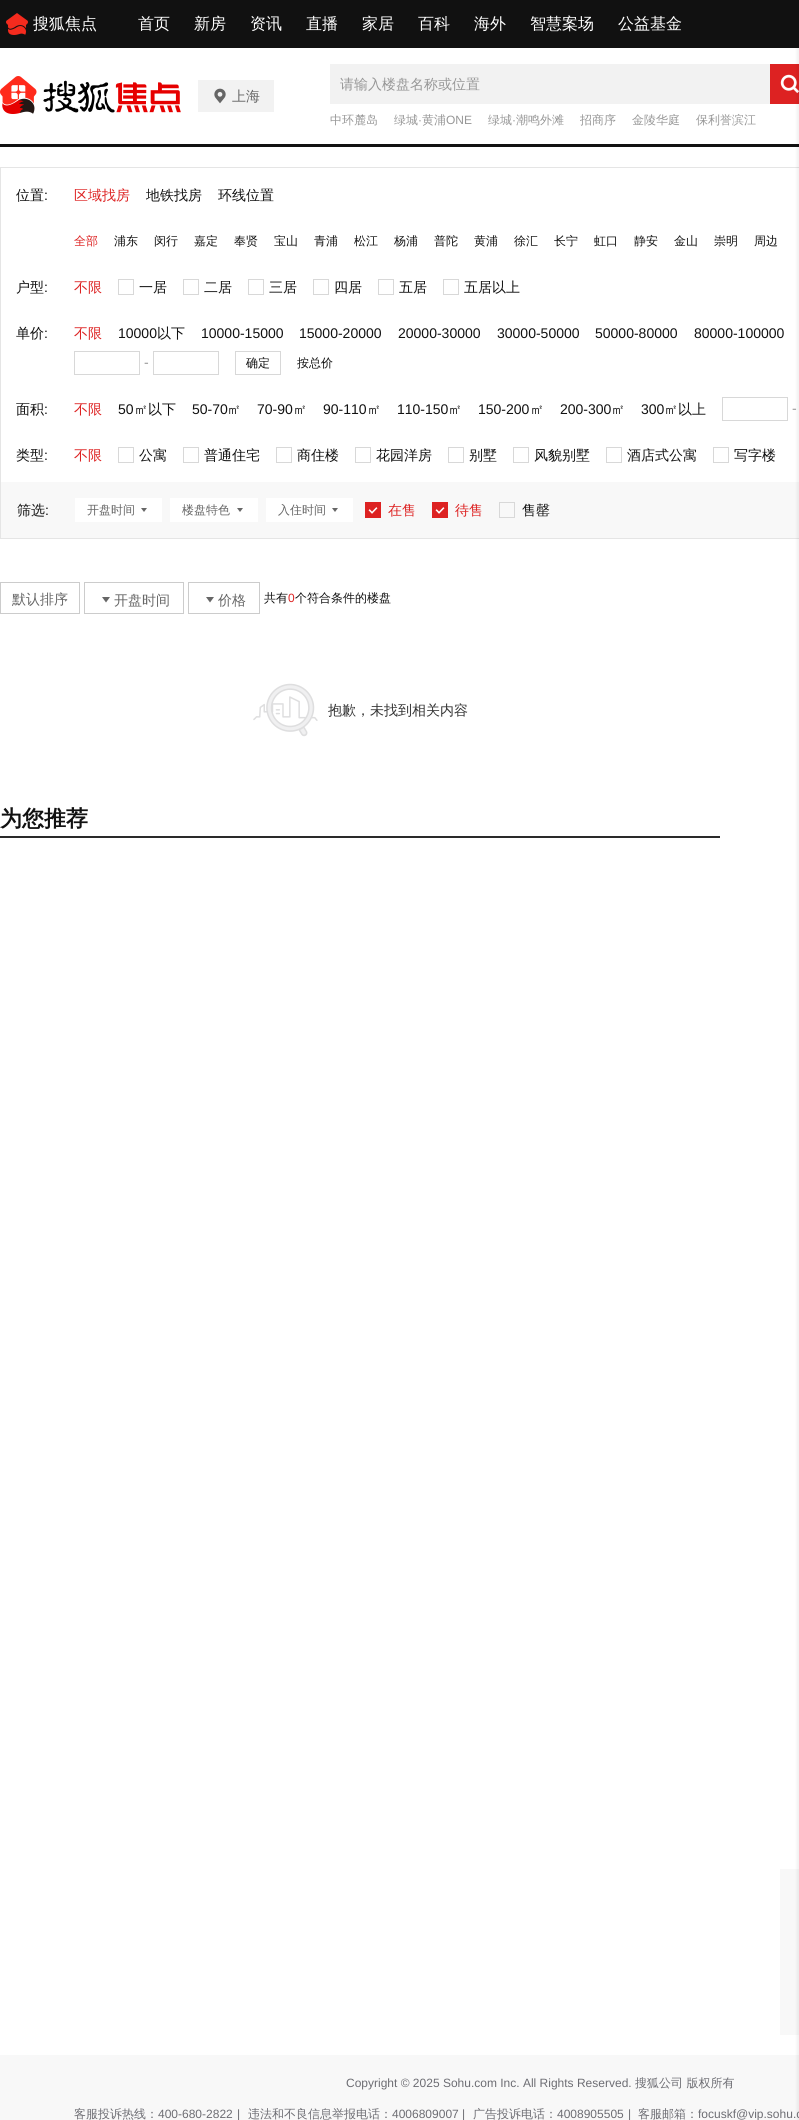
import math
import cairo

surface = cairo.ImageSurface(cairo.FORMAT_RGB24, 799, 2120)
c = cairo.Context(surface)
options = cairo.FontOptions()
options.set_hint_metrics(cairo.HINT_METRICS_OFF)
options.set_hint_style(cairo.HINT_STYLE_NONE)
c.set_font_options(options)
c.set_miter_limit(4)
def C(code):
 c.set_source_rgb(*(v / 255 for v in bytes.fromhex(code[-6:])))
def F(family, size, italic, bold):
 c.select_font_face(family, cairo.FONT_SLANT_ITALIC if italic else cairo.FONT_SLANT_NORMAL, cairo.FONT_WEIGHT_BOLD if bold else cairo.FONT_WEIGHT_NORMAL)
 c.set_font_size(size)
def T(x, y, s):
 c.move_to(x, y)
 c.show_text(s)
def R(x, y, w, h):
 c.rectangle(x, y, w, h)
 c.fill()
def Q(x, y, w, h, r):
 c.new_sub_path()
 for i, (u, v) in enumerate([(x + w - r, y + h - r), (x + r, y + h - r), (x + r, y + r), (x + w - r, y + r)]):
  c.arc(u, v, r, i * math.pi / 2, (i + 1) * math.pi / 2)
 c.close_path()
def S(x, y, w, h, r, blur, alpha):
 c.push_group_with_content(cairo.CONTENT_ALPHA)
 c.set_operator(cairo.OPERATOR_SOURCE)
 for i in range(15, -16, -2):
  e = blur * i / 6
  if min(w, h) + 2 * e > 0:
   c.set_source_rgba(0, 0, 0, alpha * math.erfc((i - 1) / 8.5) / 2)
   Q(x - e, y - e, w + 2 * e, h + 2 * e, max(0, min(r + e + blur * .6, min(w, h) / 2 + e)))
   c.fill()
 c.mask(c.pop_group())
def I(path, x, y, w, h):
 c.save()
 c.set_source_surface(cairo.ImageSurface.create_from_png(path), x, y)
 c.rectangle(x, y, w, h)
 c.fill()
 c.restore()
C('ffffff')
c.paint()
C('111111')
R(0,144,799,3)
C('dd2222')
R(770,64,29,40)
I('4.png',780,74,19,20)
c.rectangle(.5,167.5,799,371)
C('e5e5e5')
c.set_line_width(1)
c.stroke()
C('f8f8f8')
R(1,482,798,56)
R(780,1869,19,166)
R(0,2055,799,65)
C('000000')
S(797,0,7,2120,0,1.5,.06)
C('111111')
R(0,0,799,48)
I('1.png',6,13,22,22)
F('WenQuanYi Zen Hei Medium',16,0,0)
C('ffffff')
T(33,29,'搜狐焦点')
T(138,29,'首页')
T(194,29,'新房')
T(250,29,'资讯')
T(306,29,'直播')
T(362,29,'家居')
T(418,29,'百科')
T(474,29,'海外')
T(530,29,'智慧案场')
T(618,29,'公益基金')
I('2.png',0,76,181,38)
C('f2f2f2')
R(198,80,76,32)
I('3.png',214,88,12,16)
F('WenQuanYi Zen Hei Medium',14,0,0)
C('666666')
T(232,101,'上海')
C('f2f2f2')
R(330,64,440,40)
C('979797')
T(340,89,'请输入楼盘名称或位置')
F('WenQuanYi Zen Hei Medium',12,0,0)
T(330,124,'中环麓岛')
T(394,124,'绿城')
F('Liberation Sans',12,0,0)
T(418,124,'·')
F('WenQuanYi Zen Hei Medium',12,0,0)
T(422,124,'黄浦')
F('Liberation Sans',12,0,0)
T(446,124,'ONE')
F('WenQuanYi Zen Hei Medium',12,0,0)
T(488,124,'绿城')
F('Liberation Sans',12,0,0)
T(512,124,'·')
F('WenQuanYi Zen Hei Medium',12,0,0)
T(516,124,'潮鸣外滩')
T(580,124,'招商序')
T(632,124,'金陵华庭')
T(696,124,'保利誉滨江')
F('WenQuanYi Zen Hei Medium',14,0,0)
C('111111')
T(16,200,'位置')
F('Liberation Sans',14,0,0)
T(44,200,':')
F('WenQuanYi Zen Hei Medium',14,0,0)
C('dd2222')
T(74,200,'区域找房')
C('111111')
T(146,200,'地铁找房')
T(218,200,'环线位置')
F('WenQuanYi Zen Hei Medium',12,0,0)
C('dd2222')
T(74,245,'全部')
C('111111')
T(114,245,'浦东')
T(154,245,'闵行')
T(194,245,'嘉定')
T(234,245,'奉贤')
T(274,245,'宝山')
T(314,245,'青浦')
T(354,245,'松江')
T(394,245,'杨浦')
T(434,245,'普陀')
T(474,245,'黄浦')
T(514,245,'徐汇')
T(554,245,'长宁')
T(594,245,'虹口')
T(634,245,'静安')
T(674,245,'金山')
T(714,245,'崇明')
T(754,245,'周边')
F('WenQuanYi Zen Hei Medium',14,0,0)
T(16,292,'户型')
F('Liberation Sans',14,0,0)
T(44,292,':')
F('WenQuanYi Zen Hei Medium',14,0,0)
C('dd2222')
T(74,292,'不限')
c.rectangle(118.5,279.5,15,15)
C('d8d8d8')
c.stroke()
C('111111')
T(139,292,'一居')
c.rectangle(183.5,279.5,15,15)
C('d8d8d8')
c.stroke()
C('111111')
T(204,292,'二居')
c.rectangle(248.5,279.5,15,15)
C('d8d8d8')
c.stroke()
C('111111')
T(269,292,'三居')
c.rectangle(313.5,279.5,15,15)
C('d8d8d8')
c.stroke()
C('111111')
T(334,292,'四居')
c.rectangle(378.5,279.5,15,15)
C('d8d8d8')
c.stroke()
C('111111')
T(399,292,'五居')
c.rectangle(443.5,279.5,15,15)
C('d8d8d8')
c.stroke()
C('111111')
T(464,292,'五居以上')
T(16,338,'单价')
F('Liberation Sans',14,0,0)
T(44,338,':')
F('WenQuanYi Zen Hei Medium',14,0,0)
C('dd2222')
T(74,338,'不限')
F('Liberation Sans',14,0,0)
C('111111')
T(118,338,'10000')
F('WenQuanYi Zen Hei Medium',14,0,0)
T(157,338,'以下')
F('Liberation Sans',14,0,0)
T(201,338,'10000-15000')
T(299,338,'15000-20000')
T(398,338,'20000-30000')
T(497,338,'30000-50000')
T(595,338,'50000-80000')
T(694,338,'80000-100000')
c.rectangle(74.5,351.5,65,23)
C('d8d8d8')
c.stroke()
C('979797')
T(144,367,'-')
c.rectangle(153.5,351.5,65,23)
C('d8d8d8')
c.stroke()
c.rectangle(235.5,351.5,45,23)
c.stroke()
F('WenQuanYi Zen Hei Medium',12,0,0)
C('111111')
T(246,367,'确定')
T(297,367,'按总价')
F('WenQuanYi Zen Hei Medium',14,0,0)
T(16,414,'面积')
F('Liberation Sans',14,0,0)
T(44,414,':')
F('WenQuanYi Zen Hei Medium',14,0,0)
C('dd2222')
T(74,414,'不限')
F('Liberation Sans',14,0,0)
C('111111')
T(118,414,'50')
F('WenQuanYi Zen Hei Medium',14,0,0)
T(134,414,'㎡以下')
F('Liberation Sans',14,0,0)
T(192,414,'50-70')
F('WenQuanYi Zen Hei Medium',14,0,0)
T(227,414,'㎡')
F('Liberation Sans',14,0,0)
T(257,414,'70-90')
F('WenQuanYi Zen Hei Medium',14,0,0)
T(293,414,'㎡')
F('Liberation Sans',14,0,0)
T(323,414,'90-110')
F('WenQuanYi Zen Hei Medium',14,0,0)
T(367,414,'㎡')
F('Liberation Sans',14,0,0)
T(397,414,'110-150')
F('WenQuanYi Zen Hei Medium',14,0,0)
T(448,414,'㎡')
F('Liberation Sans',14,0,0)
T(478,414,'150-200')
F('WenQuanYi Zen Hei Medium',14,0,0)
T(530,414,'㎡')
F('Liberation Sans',14,0,0)
T(560,414,'200-300')
F('WenQuanYi Zen Hei Medium',14,0,0)
T(611,414,'㎡')
F('Liberation Sans',14,0,0)
T(641,414,'300')
F('WenQuanYi Zen Hei Medium',14,0,0)
T(664,414,'㎡以上')
c.rectangle(722.5,397.5,65,23)
C('d8d8d8')
c.stroke()
F('Liberation Sans',14,0,0)
C('979797')
T(792,413,'-')
F('WenQuanYi Zen Hei Medium',14,0,0)
C('111111')
T(16,460,'类型')
F('Liberation Sans',14,0,0)
T(44,460,':')
F('WenQuanYi Zen Hei Medium',14,0,0)
C('dd2222')
T(74,460,'不限')
c.rectangle(118.5,447.5,15,15)
C('d8d8d8')
c.stroke()
C('111111')
T(139,460,'公寓')
c.rectangle(183.5,447.5,15,15)
C('d8d8d8')
c.stroke()
C('111111')
T(204,460,'普通住宅')
c.rectangle(276.5,447.5,15,15)
C('d8d8d8')
c.stroke()
C('111111')
T(297,460,'商住楼')
c.rectangle(355.5,447.5,15,15)
C('d8d8d8')
c.stroke()
C('111111')
T(376,460,'花园洋房')
c.rectangle(448.5,447.5,15,15)
C('d8d8d8')
c.stroke()
C('111111')
T(469,460,'别墅')
c.rectangle(513.5,447.5,15,15)
C('d8d8d8')
c.stroke()
C('111111')
T(534,460,'风貌别墅')
c.rectangle(606.5,447.5,15,15)
C('d8d8d8')
c.stroke()
C('111111')
T(627,460,'酒店式公寓')
c.rectangle(713.5,447.5,15,15)
C('d8d8d8')
c.stroke()
C('111111')
T(734,460,'写字楼')
T(17,515,'筛选')
F('Liberation Sans',14,0,0)
T(45,515,':')
C('ffffff')
R(75,498,87,24)
F('WenQuanYi Zen Hei Medium',12,0,0)
C('666666')
T(87,514,'开盘时间')
c.new_path()
c.move_to(141,508)
c.line_to(147,508)
c.line_to(144,512)
c.close_path()
c.fill()
C('ffffff')
R(170,498,88,24)
C('666666')
T(182,514,'楼盘特色')
c.new_path()
c.move_to(237,508)
c.line_to(243,508)
c.line_to(240,512)
c.close_path()
c.fill()
C('ffffff')
R(266,498,87,24)
C('666666')
T(278,514,'入住时间')
c.new_path()
c.move_to(332,508)
c.line_to(338,508)
c.line_to(335,512)
c.close_path()
c.fill()
C('dd2222')
R(365,502,16,16)
I('5.png',368,507,10,7)
F('WenQuanYi Zen Hei Medium',14,0,0)
T(388,515,'在售')
R(432,502,16,16)
I('5.png',435,507,10,7)
T(455,515,'待售')
c.rectangle(499.5,502.5,15,15)
C('d8d8d8')
c.stroke()
C('111111')
T(522,515,'售罄')
c.rectangle(.5,582.5,79,31)
C('cccccc')
c.stroke()
C('666666')
T(12,604,'默认排序')
c.rectangle(84.5,582.5,99,31)
C('cccccc')
c.stroke()
C('666666')
c.new_path()
c.move_to(102,597)
c.line_to(110,597)
c.line_to(106,602.5)
c.close_path()
c.fill()
T(114,605,'开盘时间')
c.rectangle(188.5,582.5,71,31)
C('cccccc')
c.stroke()
C('666666')
c.new_path()
c.move_to(206,597)
c.line_to(214,597)
c.line_to(210,602.5)
c.close_path()
c.fill()
T(218,605,'价格')
F('WenQuanYi Zen Hei Medium',12,0,0)
C('111111')
T(264,602,'共有')
F('Liberation Sans',12,0,0)
C('dd2222')
T(288,602,'0')
F('WenQuanYi Zen Hei Medium',12,0,0)
C('111111')
T(295,602,'个符合条件的楼盘')
I('6.png',253,683,65,54)
F('WenQuanYi Zen Hei Medium',14,0,0)
C('333333')
T(328,715,'抱歉，未找到相关内容')
C('2a2a2a')
R(0,836,720,2)
F('WenQuanYi Zen Hei',22,0,1)
C('111111')
T(0,826,'为您推荐')
F('Liberation Sans',12,0,0)
C('6d6d73')
T(346,2087,'Copyright © 2025 Sohu.com Inc. All Rights Reserved.')
F('WenQuanYi Zen Hei Medium',12,0,0)
T(635,2087,'搜狐公司 版权所有')
T(74,2118,'客服投诉热线：')
F('Liberation Sans',12,0,0)
T(158,2118,'400-680-2822')
T(237,2118,'|')
F('WenQuanYi Zen Hei Medium',12,0,0)
T(248,2118,'违法和不良信息举报电话：')
F('Liberation Sans',12,0,0)
T(392,2118,'4006809007')
T(462,2118,'|')
F('WenQuanYi Zen Hei Medium',12,0,0)
T(473,2118,'广告投诉电话：')
F('Liberation Sans',12,0,0)
T(557,2118,'4008905505')
T(628,2118,'|')
F('WenQuanYi Zen Hei Medium',12,0,0)
T(638,2118,'客服邮箱：')
F('Liberation Sans',12,0,0)
T(698,2118,'focuskf@vip.sohu.c')
surface.write_to_png('o.png')
